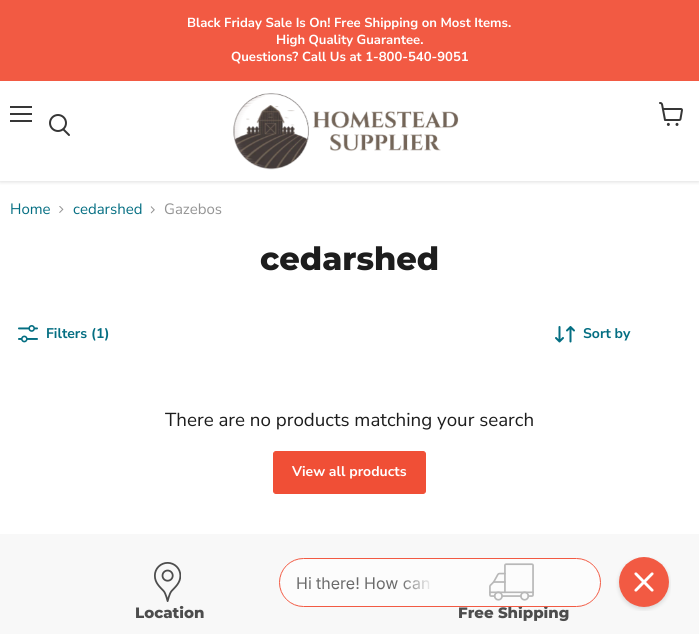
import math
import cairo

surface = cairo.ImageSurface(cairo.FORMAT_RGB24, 699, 634)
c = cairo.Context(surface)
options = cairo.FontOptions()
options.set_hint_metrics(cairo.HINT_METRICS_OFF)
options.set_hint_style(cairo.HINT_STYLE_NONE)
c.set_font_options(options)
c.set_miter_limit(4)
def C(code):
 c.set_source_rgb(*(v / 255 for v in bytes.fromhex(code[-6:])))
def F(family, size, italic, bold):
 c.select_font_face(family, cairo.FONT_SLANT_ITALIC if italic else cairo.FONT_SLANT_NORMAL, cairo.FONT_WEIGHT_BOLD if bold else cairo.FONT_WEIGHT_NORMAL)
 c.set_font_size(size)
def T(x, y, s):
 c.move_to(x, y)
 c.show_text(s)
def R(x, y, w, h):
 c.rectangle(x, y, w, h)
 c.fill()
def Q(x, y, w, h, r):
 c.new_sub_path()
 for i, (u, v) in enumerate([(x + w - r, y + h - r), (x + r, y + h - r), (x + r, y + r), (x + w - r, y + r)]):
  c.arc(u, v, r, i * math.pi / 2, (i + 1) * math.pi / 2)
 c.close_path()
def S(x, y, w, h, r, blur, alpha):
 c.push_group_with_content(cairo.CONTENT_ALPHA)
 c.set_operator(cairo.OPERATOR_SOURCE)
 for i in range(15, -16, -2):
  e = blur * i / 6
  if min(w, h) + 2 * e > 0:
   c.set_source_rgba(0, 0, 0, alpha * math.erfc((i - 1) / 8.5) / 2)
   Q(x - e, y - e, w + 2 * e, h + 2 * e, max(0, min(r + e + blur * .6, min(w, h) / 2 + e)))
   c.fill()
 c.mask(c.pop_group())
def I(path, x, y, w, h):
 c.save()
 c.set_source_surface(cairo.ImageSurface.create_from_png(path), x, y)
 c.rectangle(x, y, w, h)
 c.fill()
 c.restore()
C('ffffff')
c.paint()
c.save()
c.rectangle(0,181,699,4)
c.clip()
C('808080')
S(0,82,699,100,0,2,.25)
c.restore()
C('f25a43')
R(0,0,699,81)
F('Nunito Sans',13.1,0,1)
C('ffffff')
T(187,27,'Black Friday Sale Is On! Free Shipping on Most Items.')
T(276,44,'High Quality Guarantee.')
T(231,61,'Questions? Call Us at 1-800-540-9051')
C('363636')
R(10,106,22,2)
R(10,113,22,2)
R(10,120,22,2)
c.new_path()
c.move_to(69,135)
c.line_to(63.5,129.5)
c.set_line_cap(cairo.LINE_CAP_ROUND)
c.stroke()
c.arc(58,123,8,0,2 * math.pi)
c.set_line_cap(cairo.LINE_CAP_BUTT)
c.stroke()
I('1.png',233,93,226,77)
I('2.png',659,102,24,24)
F('Nunito Sans',15,0,0)
C('046e82')
T(10,214,'Home')
I('3.png',59,206,5,7)
T(73,214,'cedarshed')
I('4.png',150,206,5,8)
C('949494')
T(164,214,'Gazebos')
F('Montserrat ExtraBold',32,0,0)
C('1d1d1d')
T(260,270,'cedarshed')
I('5.png',18,325,20,18)
F('Nunito Sans',14,0,1)
C('046e82')
T(46,338,'Filters (1)')
I('6.png',555,326,20,17)
T(583,338,'Sort by')
F('Nunito Sans',18.75,0,0)
C('1d1d1d')
T(165,426,'There are no products matching your search')
C('f04f36')
Q(273.5,451.5,152,42,2.5)
c.fill_preserve()
c.set_line_width(1)
c.stroke()
F('Nunito Sans',14,0,1)
C('ffffff')
T(292,476,'View all products')
C('f8f8f8')
R(0,534,699,100)
I('7.png',154,562,27,40)
F('Montserrat ExtraBold',15,0,0)
C('4d4d4d')
T(135,618,'Location')
I('8.png',489,563,45,38)
T(458,618,'Free Shipping')
I('9.png',279,557,392,54)
surface.write_to_png('o.png')
